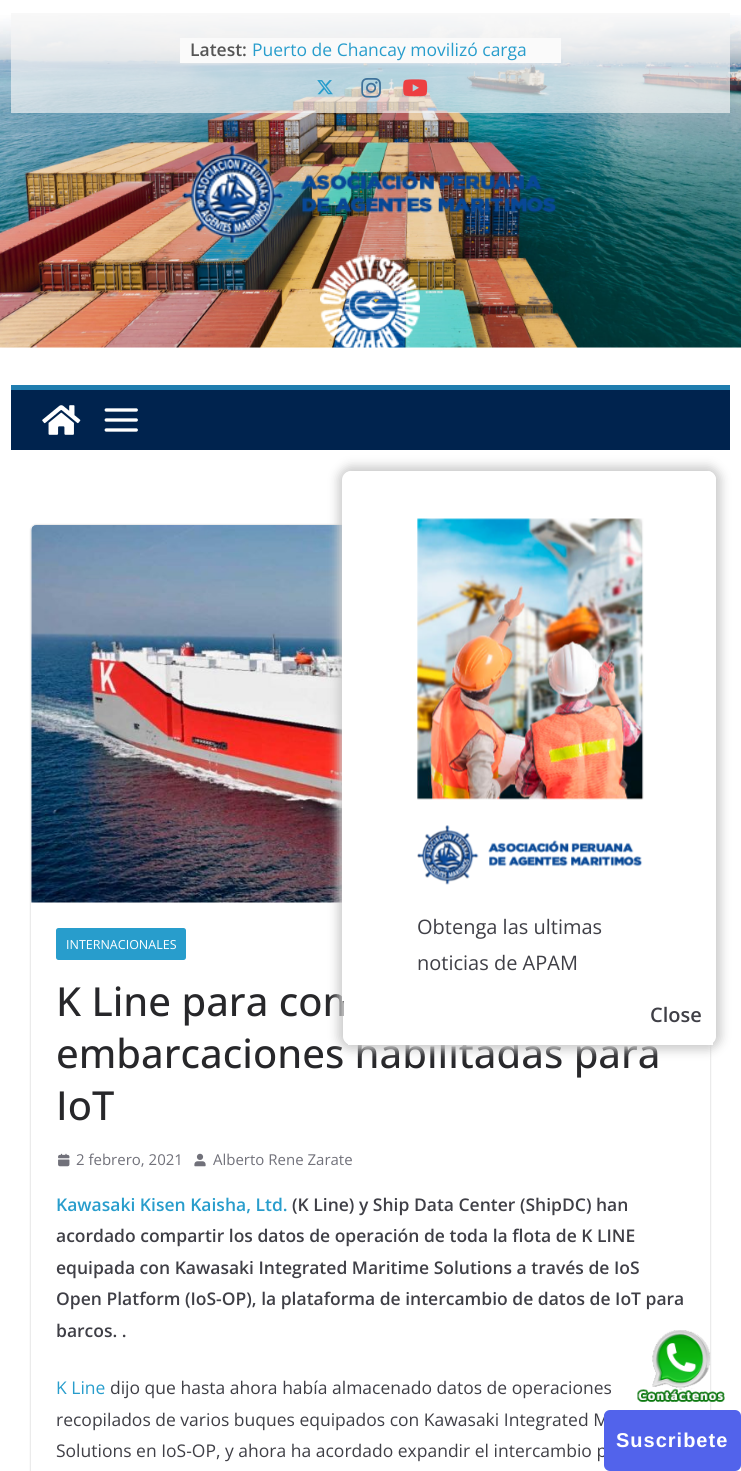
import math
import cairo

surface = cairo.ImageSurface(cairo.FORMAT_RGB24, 741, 1471)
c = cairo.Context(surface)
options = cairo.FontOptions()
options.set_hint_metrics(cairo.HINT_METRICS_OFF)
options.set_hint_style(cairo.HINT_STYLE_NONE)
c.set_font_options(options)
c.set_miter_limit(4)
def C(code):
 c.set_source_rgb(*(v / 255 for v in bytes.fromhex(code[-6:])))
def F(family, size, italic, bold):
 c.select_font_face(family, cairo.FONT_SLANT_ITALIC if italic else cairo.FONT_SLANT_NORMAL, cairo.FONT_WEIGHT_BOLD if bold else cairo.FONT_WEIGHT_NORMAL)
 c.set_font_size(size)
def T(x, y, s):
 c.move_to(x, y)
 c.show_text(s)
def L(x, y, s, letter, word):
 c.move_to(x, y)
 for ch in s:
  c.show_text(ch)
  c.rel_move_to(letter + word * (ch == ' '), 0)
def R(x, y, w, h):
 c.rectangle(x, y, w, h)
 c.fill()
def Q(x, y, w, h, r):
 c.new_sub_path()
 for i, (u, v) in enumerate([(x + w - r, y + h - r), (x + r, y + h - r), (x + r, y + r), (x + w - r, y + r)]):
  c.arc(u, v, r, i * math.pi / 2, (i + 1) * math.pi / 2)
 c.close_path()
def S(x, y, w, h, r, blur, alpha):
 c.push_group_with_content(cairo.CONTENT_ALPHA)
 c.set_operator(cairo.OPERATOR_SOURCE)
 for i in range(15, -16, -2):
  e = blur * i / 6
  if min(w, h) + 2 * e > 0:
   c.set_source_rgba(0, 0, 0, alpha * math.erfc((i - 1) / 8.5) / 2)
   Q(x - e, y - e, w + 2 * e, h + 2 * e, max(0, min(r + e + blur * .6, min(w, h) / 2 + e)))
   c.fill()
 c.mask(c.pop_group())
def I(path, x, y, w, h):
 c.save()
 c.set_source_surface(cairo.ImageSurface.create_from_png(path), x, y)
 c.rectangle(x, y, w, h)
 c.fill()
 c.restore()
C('ffffff')
c.paint()
I('1.png',0,15,741,333)
c.set_source_rgba(0.957,0.957,0.961,0.67)
R(11,13,719,100)
C('fafafa')
R(180,38,381,25)
F('Open Sans SemiBold',17.5,0,0)
C('555555')
T(190,56,'Latest:')
F('Open Sans',17.5,0,0)
C('289dcc')
T(252,56,'Puerto de Chancay movilizó carga')
I('2.png',317,80,16,15)
I('3.png',361,78,20,20)
I('4.png',403,79,25,18)
I('5.png',182,143,375,100)
I('6.png',320,255,100,93)
c.save()
c.set_fill_rule(cairo.FILL_RULE_EVEN_ODD)
c.new_path()
c.move_to(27,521)
c.line_to(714,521)
c.line_to(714,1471)
c.line_to(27,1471)
c.close_path()
c.move_to(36,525)
c.line_to(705,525)
c.curve_to(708,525,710,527,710,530)
c.line_to(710,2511)
c.curve_to(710,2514,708,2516,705,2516)
c.line_to(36,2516)
c.curve_to(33,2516,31,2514,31,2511)
c.line_to(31,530)
c.curve_to(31,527,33,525,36,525)
c.close_path()
c.clip()
C('000000')
S(31,525,679,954,5,1,.24)
c.restore()
I('7.png',637,1330,88,72)
C('00234e')
R(11,390,719,60)
C('207daf')
R(11,385,719,5)
I('8.png',42,405,39,30)
I('9.png',104,408,34,24)
I('10.png',31,525,311,378)
C('289dcc')
Q(56,928,130,32,2.5)
c.fill()
F('Open Sans',12.5,0,0)
C('ffffff')
T(66,949,'INTERNACIONALES')
F('Open Sans Medium',40,0,0)
C('27272a')
T(56,1016,'K Line para com')
T(56,1068,'embarcaciones habilitadas para')
T(56,1120,'IoT')
I('11.png',58,1153,12,14)
F('Open Sans',15,0,0)
C('71717a')
T(76,1165,'2 febrero, 2021')
I('12.png',194,1153,12,14)
T(213,1165,'Alberto Rene Zarate')
F('Open Sans SemiBold',17.5,0,0)
C('289dcc')
T(56,1211,'Kawasaki Kisen Kaisha, Ltd.')
C('3f3f46')
T(292,1211,'(K Line) y Ship Data Center (ShipDC) han')
T(56,1242,'acordado compartir los datos de operación de toda la flota de K LINE')
T(56,1274,'equipada con Kawasaki Integrated Maritime Solutions a través de IoS')
T(56,1305,'Open Platform (IoS-OP), la plataforma de intercambio de datos de IoT para')
T(56,1337,'barcos. .')
F('Open Sans',17.5,0,0)
C('289dcc')
T(56,1394,'K Line')
C('3f3f46')
T(110,1394,'dijo que hasta ahora había almacenado datos de operaciones')
T(56,1426,'recopilados de varios buques equipados con Kawasaki Integrated M')
T(56,1457,'Solutions en IoS-OP, y ahora ha acordado expandir el intercambio p')
c.save()
c.set_fill_rule(cairo.FILL_RULE_EVEN_ODD)
c.new_path()
c.move_to(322,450)
c.line_to(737,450)
c.line_to(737,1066)
c.line_to(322,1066)
c.close_path()
c.move_to(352,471)
c.line_to(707,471)
c.curve_to(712,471,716,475,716,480)
c.line_to(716,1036)
c.curve_to(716,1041,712,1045,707,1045)
c.line_to(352,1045)
c.curve_to(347,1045,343,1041,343,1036)
c.line_to(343,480)
c.curve_to(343,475,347,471,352,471)
c.close_path()
c.clip()
C('cccccc')
S(338,466,383,584,14,5,1)
c.restore()
C('ffffff')
c.new_path()
c.move_to(351,471)
c.line_to(708,471)
c.curve_to(712,471,716,475,716,480)
c.line_to(716,1001)
c.line_to(342,1001)
c.line_to(342,480)
c.curve_to(342,475,346,471,351,471)
c.close_path()
c.fill()
R(348,1001,365,44)
I('13.png',417,518,227,282)
I('14.png',417,825,226,60)
F('Open Sans',20,0,0)
C('3f3f46')
T(417,934,'Obtenga las ultimas')
T(417,970,'noticias de APAM')
F('Open Sans SemiBold',20,0,0)
T(650,1022,'Close')
C('5263eb')
Q(604,1410,137,61,6)
c.fill()
F('Liberation Sans',20,0,1)
C('ffffff')
L(616,1447,'Suscribete',1,0)
surface.write_to_png('o.png')
